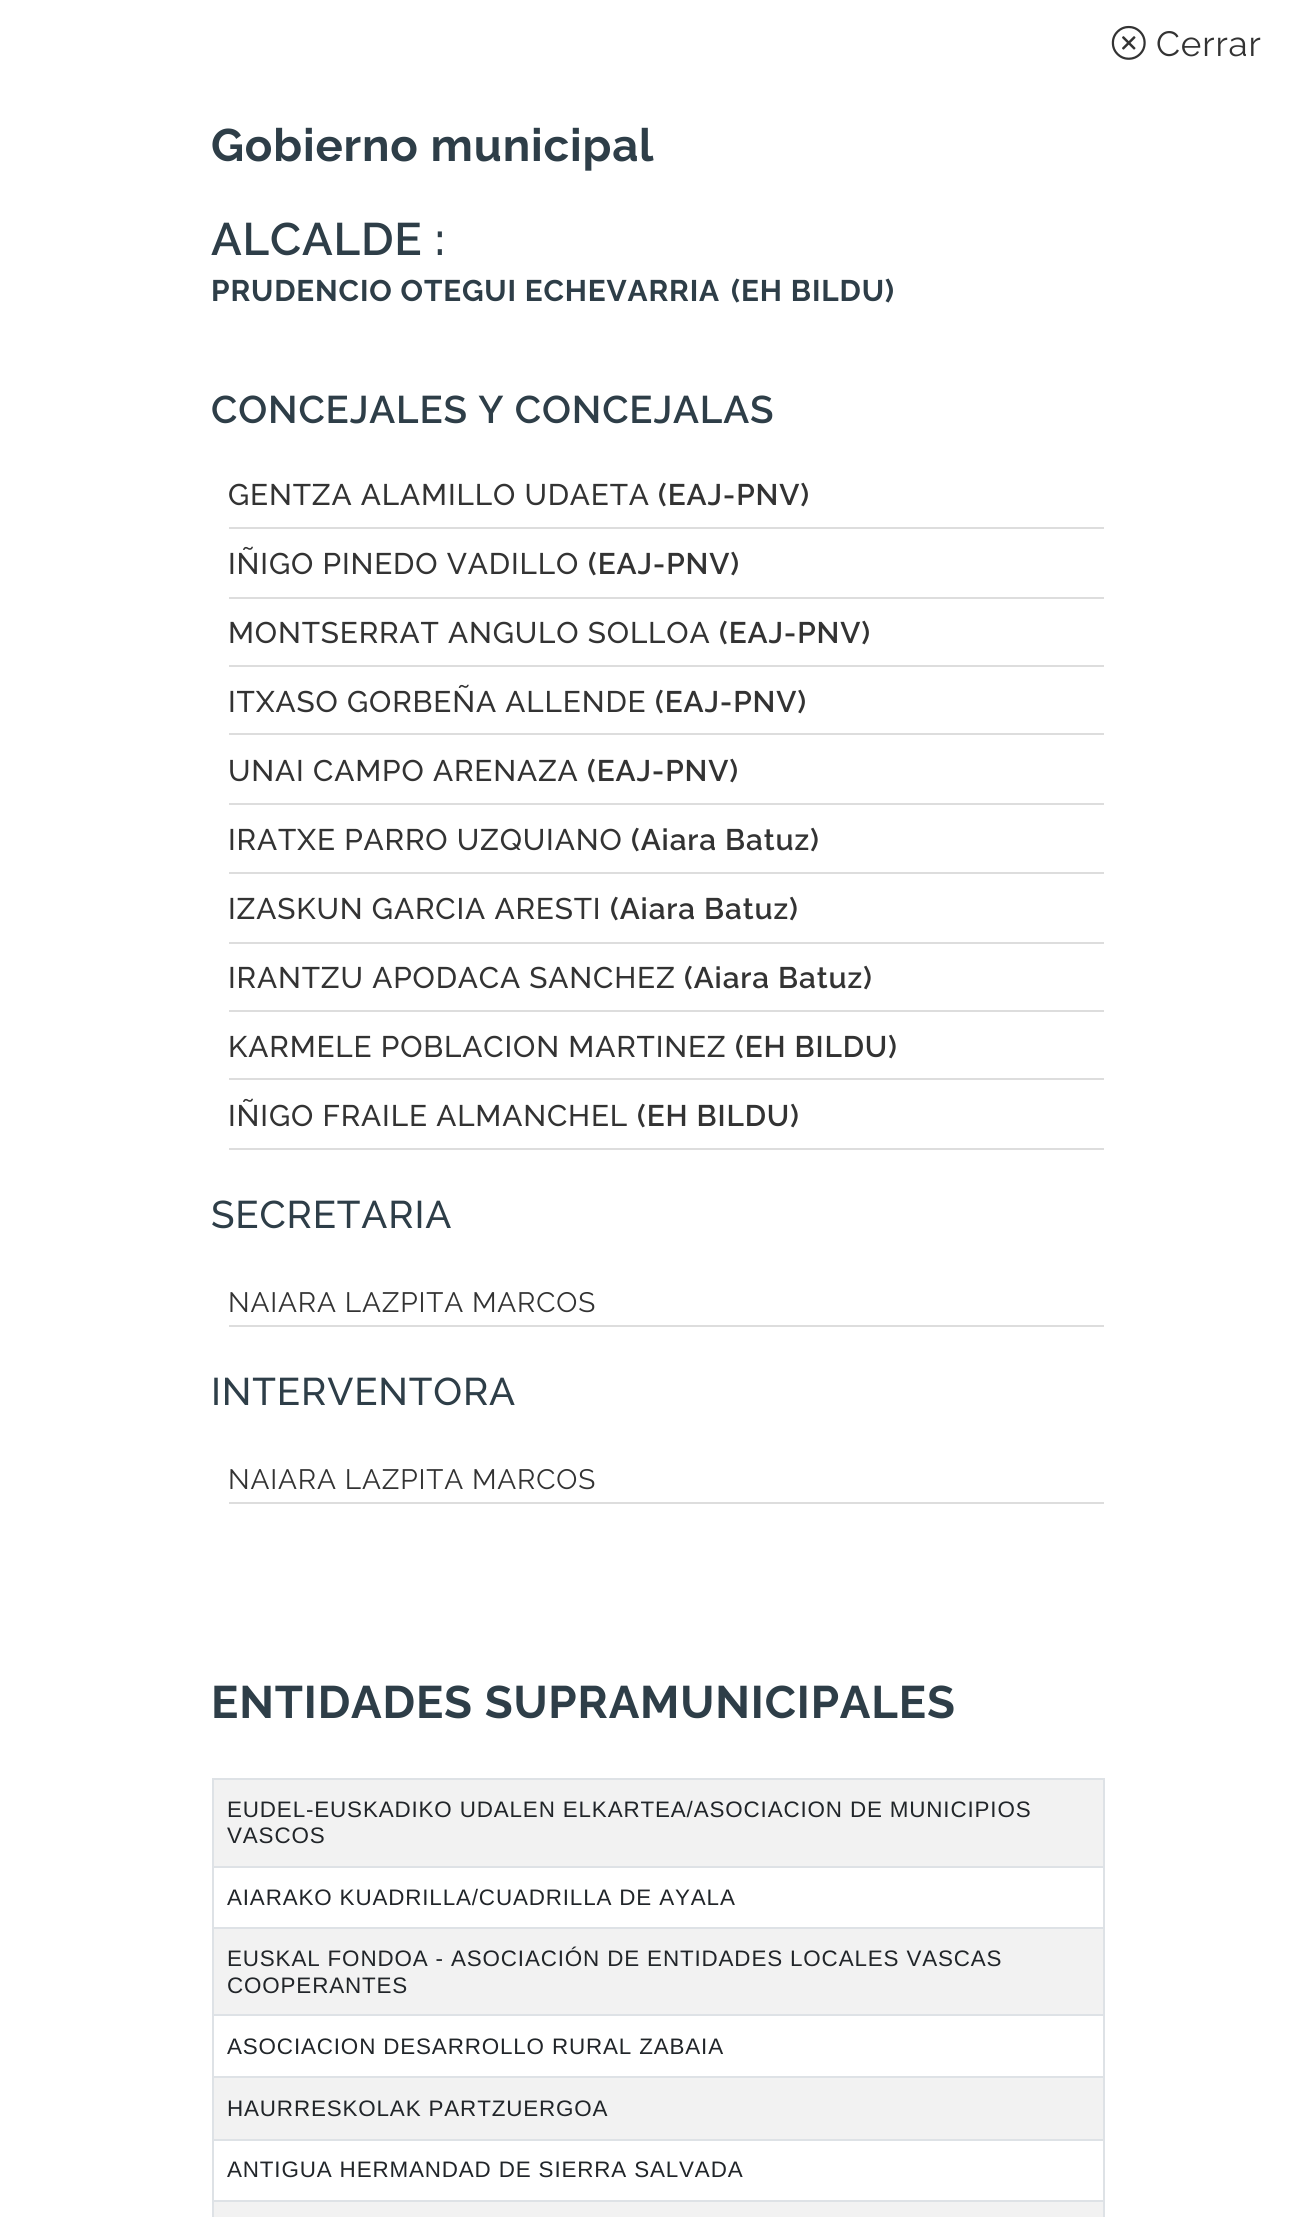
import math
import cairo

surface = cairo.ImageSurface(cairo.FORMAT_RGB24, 1314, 2217)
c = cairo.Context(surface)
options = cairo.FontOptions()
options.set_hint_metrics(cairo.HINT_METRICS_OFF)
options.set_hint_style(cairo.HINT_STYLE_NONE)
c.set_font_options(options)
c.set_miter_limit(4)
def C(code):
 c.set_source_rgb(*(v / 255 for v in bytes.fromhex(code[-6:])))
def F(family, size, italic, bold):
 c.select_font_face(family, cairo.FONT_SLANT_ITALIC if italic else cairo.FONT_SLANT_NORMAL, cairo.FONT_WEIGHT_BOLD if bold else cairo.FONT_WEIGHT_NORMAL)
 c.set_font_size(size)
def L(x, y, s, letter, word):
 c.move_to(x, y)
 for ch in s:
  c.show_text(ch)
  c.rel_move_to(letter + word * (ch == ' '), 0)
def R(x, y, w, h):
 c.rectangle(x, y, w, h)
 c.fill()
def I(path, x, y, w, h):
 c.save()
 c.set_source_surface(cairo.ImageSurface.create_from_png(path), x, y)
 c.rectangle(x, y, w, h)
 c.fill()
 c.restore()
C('ffffff')
c.paint()
I('1.png',1111,25,35,35)
F('Raleway',35,0,0)
C('333333')
L(1156,56,'Cerrar',.85,0)
F('Raleway',45.5,0,1)
C('2e3e48')
L(211,161,'Gobierno municipal',.85,0)
F('Raleway SemiBold',45.5,0,0)
L(211,255,'ALCALDE :',.85,0)
F('Raleway',29.75,0,1)
L(211,301,'PRUDENCIO OTEGUI ECHEVARRIA',.85,0)
L(731,301,'(EH BILDU)',.85,0)
F('Raleway SemiBold',38.5,0,0)
L(211,423,'CONCEJALES Y CONCEJALAS',.85,0)
C('dddddd')
R(229,527,875,2)
F('Raleway Medium',29.75,0,0)
C('333333')
L(228,505,'GENTZA ALAMILLO UDAETA',.85,0)
F('Raleway SemiBold',29.75,0,0)
L(658,505,'(EAJ-PNV)',.85,0)
C('dddddd')
R(229,597,875,2)
F('Raleway Medium',29.75,0,0)
C('333333')
L(228,574,'IÑIGO PINEDO VADILLO',.85,0)
F('Raleway SemiBold',29.75,0,0)
L(588,574,'(EAJ-PNV)',.85,0)
C('dddddd')
R(229,665,875,2)
F('Raleway Medium',29.75,0,0)
C('333333')
L(228,643,'MONTSERRAT ANGULO SOLLOA',.85,0)
F('Raleway SemiBold',29.75,0,0)
L(719,643,'(EAJ-PNV)',.85,0)
C('dddddd')
R(229,733,875,2)
F('Raleway Medium',29.75,0,0)
C('333333')
L(228,712,'ITXASO GORBEÑA ALLENDE',.85,0)
F('Raleway SemiBold',29.75,0,0)
L(655,712,'(EAJ-PNV)',.85,0)
C('dddddd')
R(229,803,875,2)
F('Raleway Medium',29.75,0,0)
C('333333')
L(228,781,'UNAI CAMPO ARENAZA',.85,0)
F('Raleway SemiBold',29.75,0,0)
L(587,781,'(EAJ-PNV)',.85,0)
C('dddddd')
R(229,872,875,2)
F('Raleway Medium',29.75,0,0)
C('333333')
L(228,850,'IRATXE PARRO UZQUIANO',.85,0)
F('Raleway SemiBold',29.75,0,0)
L(631,850,'(Aiara Batuz)',.85,0)
C('dddddd')
R(229,942,875,2)
F('Raleway Medium',29.75,0,0)
C('333333')
L(228,919,'IZASKUN GARCIA ARESTI',.85,0)
F('Raleway SemiBold',29.75,0,0)
L(610,919,'(Aiara Batuz)',.85,0)
C('dddddd')
R(229,1010,875,2)
F('Raleway Medium',29.75,0,0)
C('333333')
L(228,988,'IRANTZU APODACA SANCHEZ',.85,0)
F('Raleway SemiBold',29.75,0,0)
L(684,988,'(Aiara Batuz)',.85,0)
C('dddddd')
R(229,1078,875,2)
F('Raleway Medium',29.75,0,0)
C('333333')
L(228,1057,'KARMELE POBLACION MARTINEZ',.85,0)
F('Raleway SemiBold',29.75,0,0)
L(735,1057,'(EH BILDU)',.85,0)
C('dddddd')
R(229,1148,875,2)
F('Raleway Medium',29.75,0,0)
C('333333')
L(228,1126,'IÑIGO FRAILE ALMANCHEL',.85,0)
F('Raleway SemiBold',29.75,0,0)
L(637,1126,'(EH BILDU)',.85,0)
F('Raleway Medium',38.5,0,0)
C('2e3e48')
L(211,1228,'SECRETARIA',.85,0)
C('dddddd')
R(229,1325,875,2)
F('Raleway',28,0,0)
C('333333')
L(228,1312,'NAIARA LAZPITA MARCOS',.85,0)
F('Raleway Medium',38.5,0,0)
C('2e3e48')
L(211,1405,'INTERVENTORA',.85,0)
C('dddddd')
R(229,1502,875,2)
F('Raleway',28,0,0)
C('333333')
L(228,1489,'NAIARA LAZPITA MARCOS',.85,0)
F('Raleway',45.5,0,1)
C('2e3e48')
L(211,1718,'ENTIDADES SUPRAMUNICIPALES',.85,0)
C('dee2e6')
R(212,1778,892,2)
R(1103,1778,2,439)
R(212,1778,2,439)
C('f2f2f2')
R(214,1780,889,86)
F('Liberation Sans',22.4,0,0)
C('212529')
L(227,1817,'EUDEL-EUSKADIKO UDALEN ELKARTEA/ASOCIACION DE MUNICIPIOS',.85,0)
L(227,1843,'VASCOS',.85,0)
C('dee2e6')
R(212,1866,892,2)
C('212529')
L(227,1905,'AIARAKO KUADRILLA/CUADRILLA DE AYALA',.85,0)
C('f2f2f2')
R(214,1929,889,85)
C('dee2e6')
R(212,1927,892,2)
C('212529')
L(227,1966,'EUSKAL FONDOA - ASOCIACIÓN DE ENTIDADES LOCALES VASCAS',.85,0)
L(227,1993,'COOPERANTES',.85,0)
C('dee2e6')
R(212,2014,892,2)
C('212529')
L(227,2054,'ASOCIACION DESARROLLO RURAL ZABAIA',.85,0)
C('f2f2f2')
R(214,2078,889,61)
C('dee2e6')
R(212,2076,892,2)
C('212529')
L(227,2116,'HAURRESKOLAK PARTZUERGOA',.85,0)
C('dee2e6')
R(212,2139,892,2)
C('212529')
L(227,2177,'ANTIGUA HERMANDAD DE SIERRA SALVADA',.85,0)
C('f2f2f2')
R(214,2202,889,15)
C('dee2e6')
R(212,2200,892,2)
surface.write_to_png('o.png')
